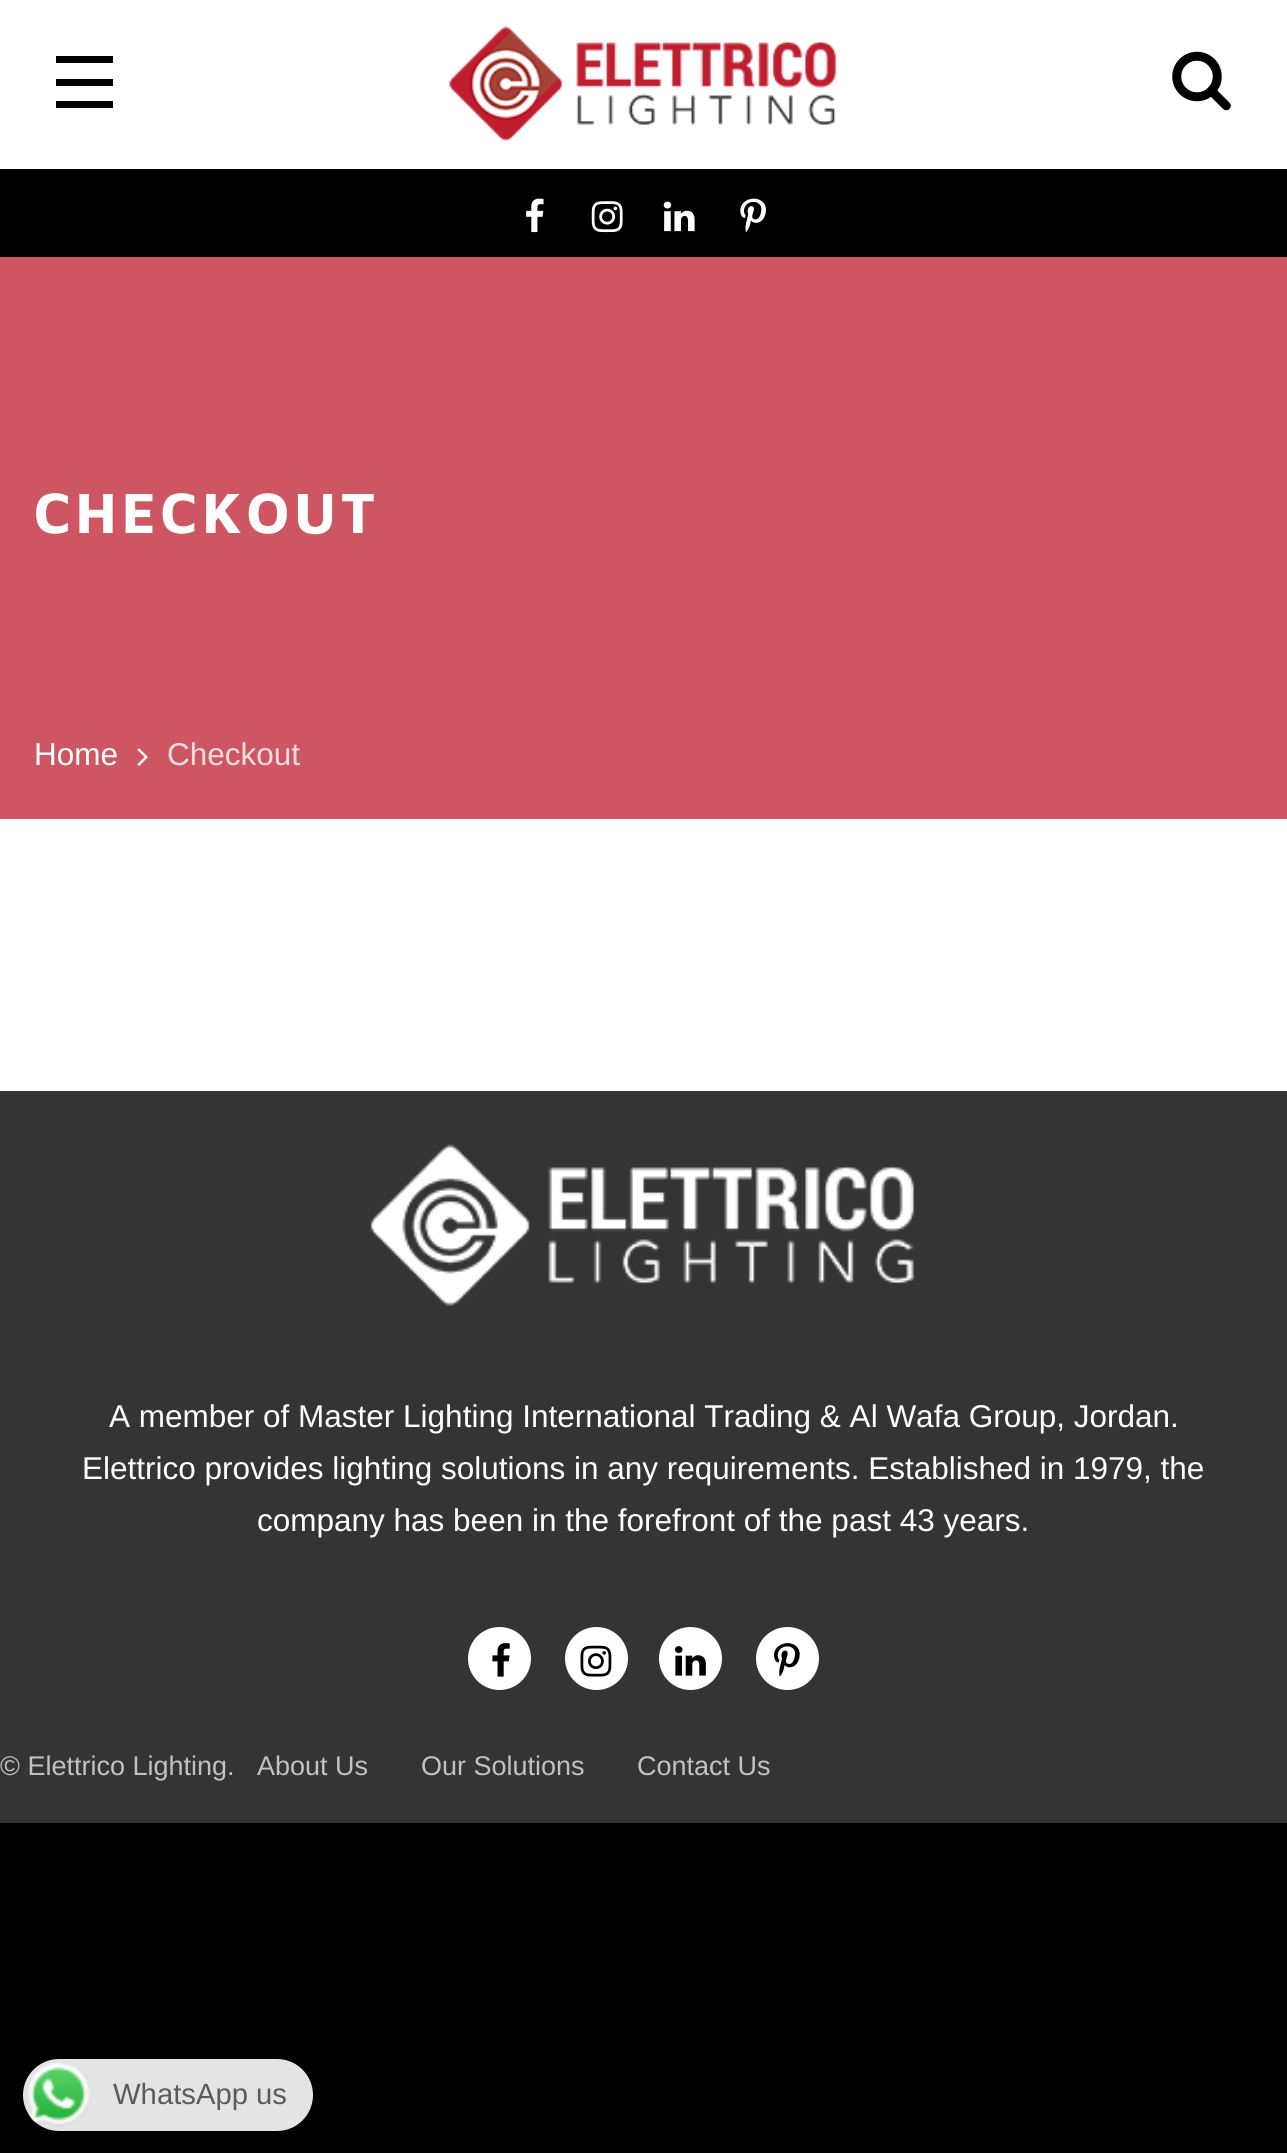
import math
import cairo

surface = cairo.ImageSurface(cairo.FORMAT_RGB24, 1287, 2153)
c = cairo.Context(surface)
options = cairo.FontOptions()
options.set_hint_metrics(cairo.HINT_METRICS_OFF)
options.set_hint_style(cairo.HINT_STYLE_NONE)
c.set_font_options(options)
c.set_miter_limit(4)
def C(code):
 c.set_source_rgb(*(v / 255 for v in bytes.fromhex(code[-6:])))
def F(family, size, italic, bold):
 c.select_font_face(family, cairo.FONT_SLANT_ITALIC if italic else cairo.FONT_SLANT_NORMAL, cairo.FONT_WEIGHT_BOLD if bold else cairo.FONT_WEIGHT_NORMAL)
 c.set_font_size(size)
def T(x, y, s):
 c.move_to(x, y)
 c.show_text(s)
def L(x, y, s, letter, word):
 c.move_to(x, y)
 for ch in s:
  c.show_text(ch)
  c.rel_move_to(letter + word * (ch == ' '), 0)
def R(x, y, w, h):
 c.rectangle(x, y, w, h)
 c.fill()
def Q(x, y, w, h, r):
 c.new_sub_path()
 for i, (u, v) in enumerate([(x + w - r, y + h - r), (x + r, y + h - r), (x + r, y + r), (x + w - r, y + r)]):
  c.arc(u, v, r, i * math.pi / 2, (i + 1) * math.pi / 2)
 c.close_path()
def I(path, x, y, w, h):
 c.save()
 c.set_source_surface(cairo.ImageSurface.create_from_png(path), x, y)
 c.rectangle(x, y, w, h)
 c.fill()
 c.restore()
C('000000')
c.paint()
C('ffffff')
R(0,0,1287,169)
C('000000')
R(56,56,57,7)
R(56,79,57,7)
R(56,101,57,7)
I('1.png',449,26,388,115)
I('2.png',1172,51,59,60)
I('3.png',526,198,18,35)
I('4.png',591,201,32,32)
I('5.png',663,201,32,31)
I('6.png',740,198,26,34)
C('ffffff')
R(0,819,1287,272)
C('ce5662')
R(0,257,1287,562)
F('Maven Pro',58.5,0,1)
C('ffffff')
L(34,533,'CHECKOUT',4.5,0)
F('Liberation Sans',31.5,0,0)
T(34,765,'Home')
I('7.png',137,748,11,18)
C('f5dde0')
T(167,765,'Checkout')
C('353434')
R(0,1091,1287,732)
I('8.png',370,1144,545,162)
C('ffffff')
T(109,1427,'A member of Master Lighting International Trading & Al Wafa Group, Jordan.')
T(82,1479,'Elettrico provides lighting solutions in any requirements. Established in 1979, the')
T(257,1531,'company has been in the forefront of the past 43 years.')
c.new_path()
c.arc(499.5,1658.5,31.5,0,2 * math.pi)
c.fill()
I('9.png',492,1643,18,34)
c.arc(596.5,1658.5,31.5,0,2 * math.pi)
c.fill()
I('10.png',580,1645,32,32)
c.arc(690.5,1658.5,31.5,0,2 * math.pi)
c.fill()
I('11.png',675,1646,31,30)
c.arc(787.5,1658.5,31.5,0,2 * math.pi)
c.fill()
I('12.png',774,1643,26,34)
F('Liberation Sans',27,0,0)
C('c2c2c2')
T(0,1775,'© Elettrico Lighting.')
T(257,1775,'About Us')
T(421,1775,'Our Solutions')
T(637,1775,'Contact Us')
C('e4e4e4')
Q(23,2059,290,72,36)
c.fill()
I('13.png',27,2063,63,64)
F('Liberation Sans',29.25,0,0)
C('5b5b5b')
T(113,2104,'WhatsApp us')
surface.write_to_png('o.png')
